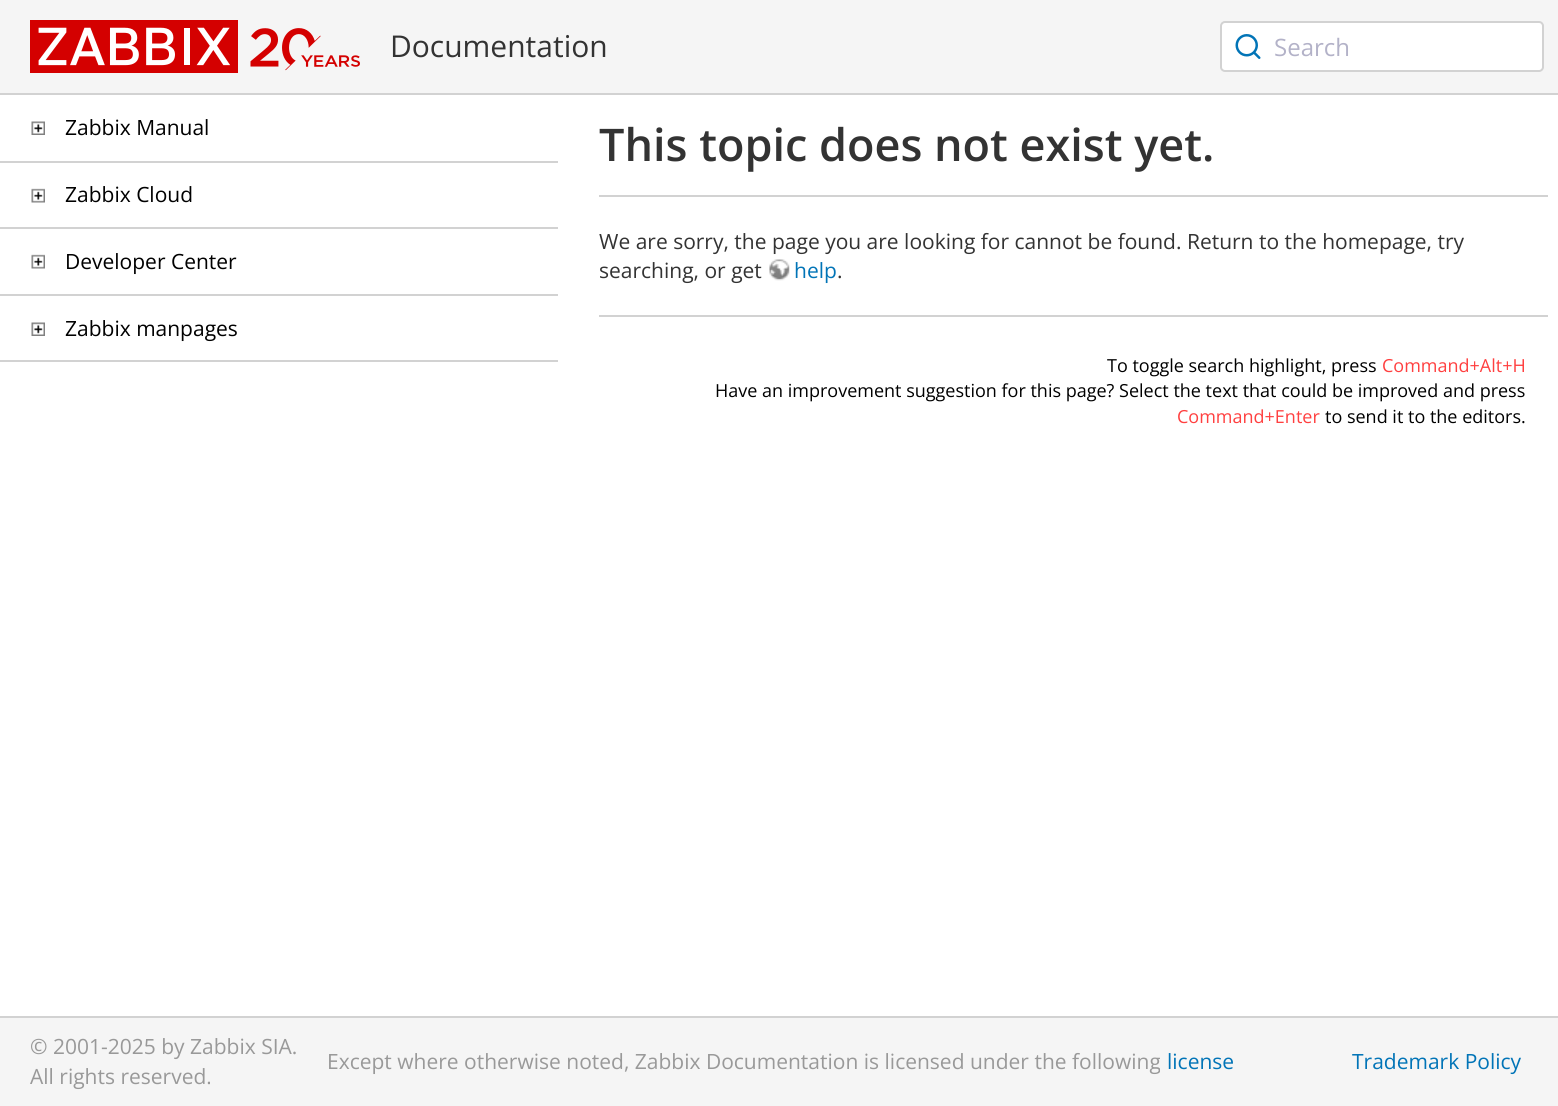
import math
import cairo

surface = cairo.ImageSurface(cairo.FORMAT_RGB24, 1558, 1106)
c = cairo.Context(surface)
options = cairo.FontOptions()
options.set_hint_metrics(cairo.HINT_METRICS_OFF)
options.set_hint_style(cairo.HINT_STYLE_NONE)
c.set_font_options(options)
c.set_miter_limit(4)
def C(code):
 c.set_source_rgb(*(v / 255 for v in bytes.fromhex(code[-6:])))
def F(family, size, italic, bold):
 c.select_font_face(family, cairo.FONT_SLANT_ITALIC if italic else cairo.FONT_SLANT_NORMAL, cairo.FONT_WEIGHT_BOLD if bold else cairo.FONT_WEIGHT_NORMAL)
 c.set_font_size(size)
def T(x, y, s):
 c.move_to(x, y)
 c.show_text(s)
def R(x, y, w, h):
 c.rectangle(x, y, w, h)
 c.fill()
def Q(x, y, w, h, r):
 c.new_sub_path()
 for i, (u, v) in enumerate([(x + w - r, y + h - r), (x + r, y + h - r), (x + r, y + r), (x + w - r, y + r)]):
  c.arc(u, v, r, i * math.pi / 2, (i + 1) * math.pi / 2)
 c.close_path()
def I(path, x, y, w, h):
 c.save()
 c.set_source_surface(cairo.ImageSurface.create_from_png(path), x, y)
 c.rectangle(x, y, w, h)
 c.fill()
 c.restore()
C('ffffff')
c.paint()
C('f5f5f5')
R(0,0,1558,93)
C('d2d2d2')
R(0,93,1558,2)
I('1.png',30,20,330,53)
F('Open Sans',30,0,0)
C('333333')
T(390,57,'Documentation')
C('ffffff')
Q(1221,22,322,49,4)
c.fill_preserve()
C('d2d2d2')
c.stroke()
I('2.png',1235,34,26,25)
F('Open Sans',24,0,0)
C('b3b2c8')
T(1274,56,'Search')
C('d2d2d2')
R(0,161,558,2)
I('3.png',31,121,14,14)
F('Open Sans',21,0,0)
C('000000')
T(65,135,'Zabbix Manual')
C('d2d2d2')
R(0,227,558,2)
I('4.png',31,188,14,15)
C('000000')
T(65,202,'Zabbix Cloud')
C('d2d2d2')
R(0,294,558,2)
I('4.png',31,254,14,15)
C('000000')
T(65,269,'Developer Center')
C('d2d2d2')
R(0,360,558,2)
I('3.png',31,322,14,14)
C('000000')
T(65,336,'Zabbix manpages')
C('d2d2d2')
R(599,195,949,2)
F('Open Sans SemiBold',45,0,0)
C('333333')
T(599,161,'This topic does not exist yet.')
F('Open Sans',21,0,0)
T(599,249,'We are sorry, the page you are looking for cannot be found. Return to the homepage, try')
T(599,278,'searching, or get')
I('5.png',769,259,21,22)
C('0174b7')
T(794,278,'help')
C('333333')
T(837,278,'.')
C('d2d2d2')
R(599,315,949,2)
F('Open Sans',18,0,0)
C('000000')
T(1107,372,'To toggle search highlight, press')
C('ff4040')
T(1382,372,'Command+Alt+H')
C('000000')
T(715,397,'Have an improvement suggestion for this page? Select the text that could be improved and press')
C('ff4040')
T(1177,423,'Command+Enter')
C('000000')
T(1325,423,'to send it to the editors.')
C('f5f5f5')
R(0,1018,1558,88)
C('d2d2d2')
R(0,1016,1558,2)
F('Open Sans',21,0,0)
C('999999')
T(30,1054,'© 2001-2025 by Zabbix SIA.')
T(30,1084,'All rights reserved.')
T(327,1069,'Except where otherwise noted, Zabbix Documentation is licensed under the following')
C('0174b7')
T(1167,1069,'license')
T(1352,1069,'Trademark Policy')
surface.write_to_png('o.png')
